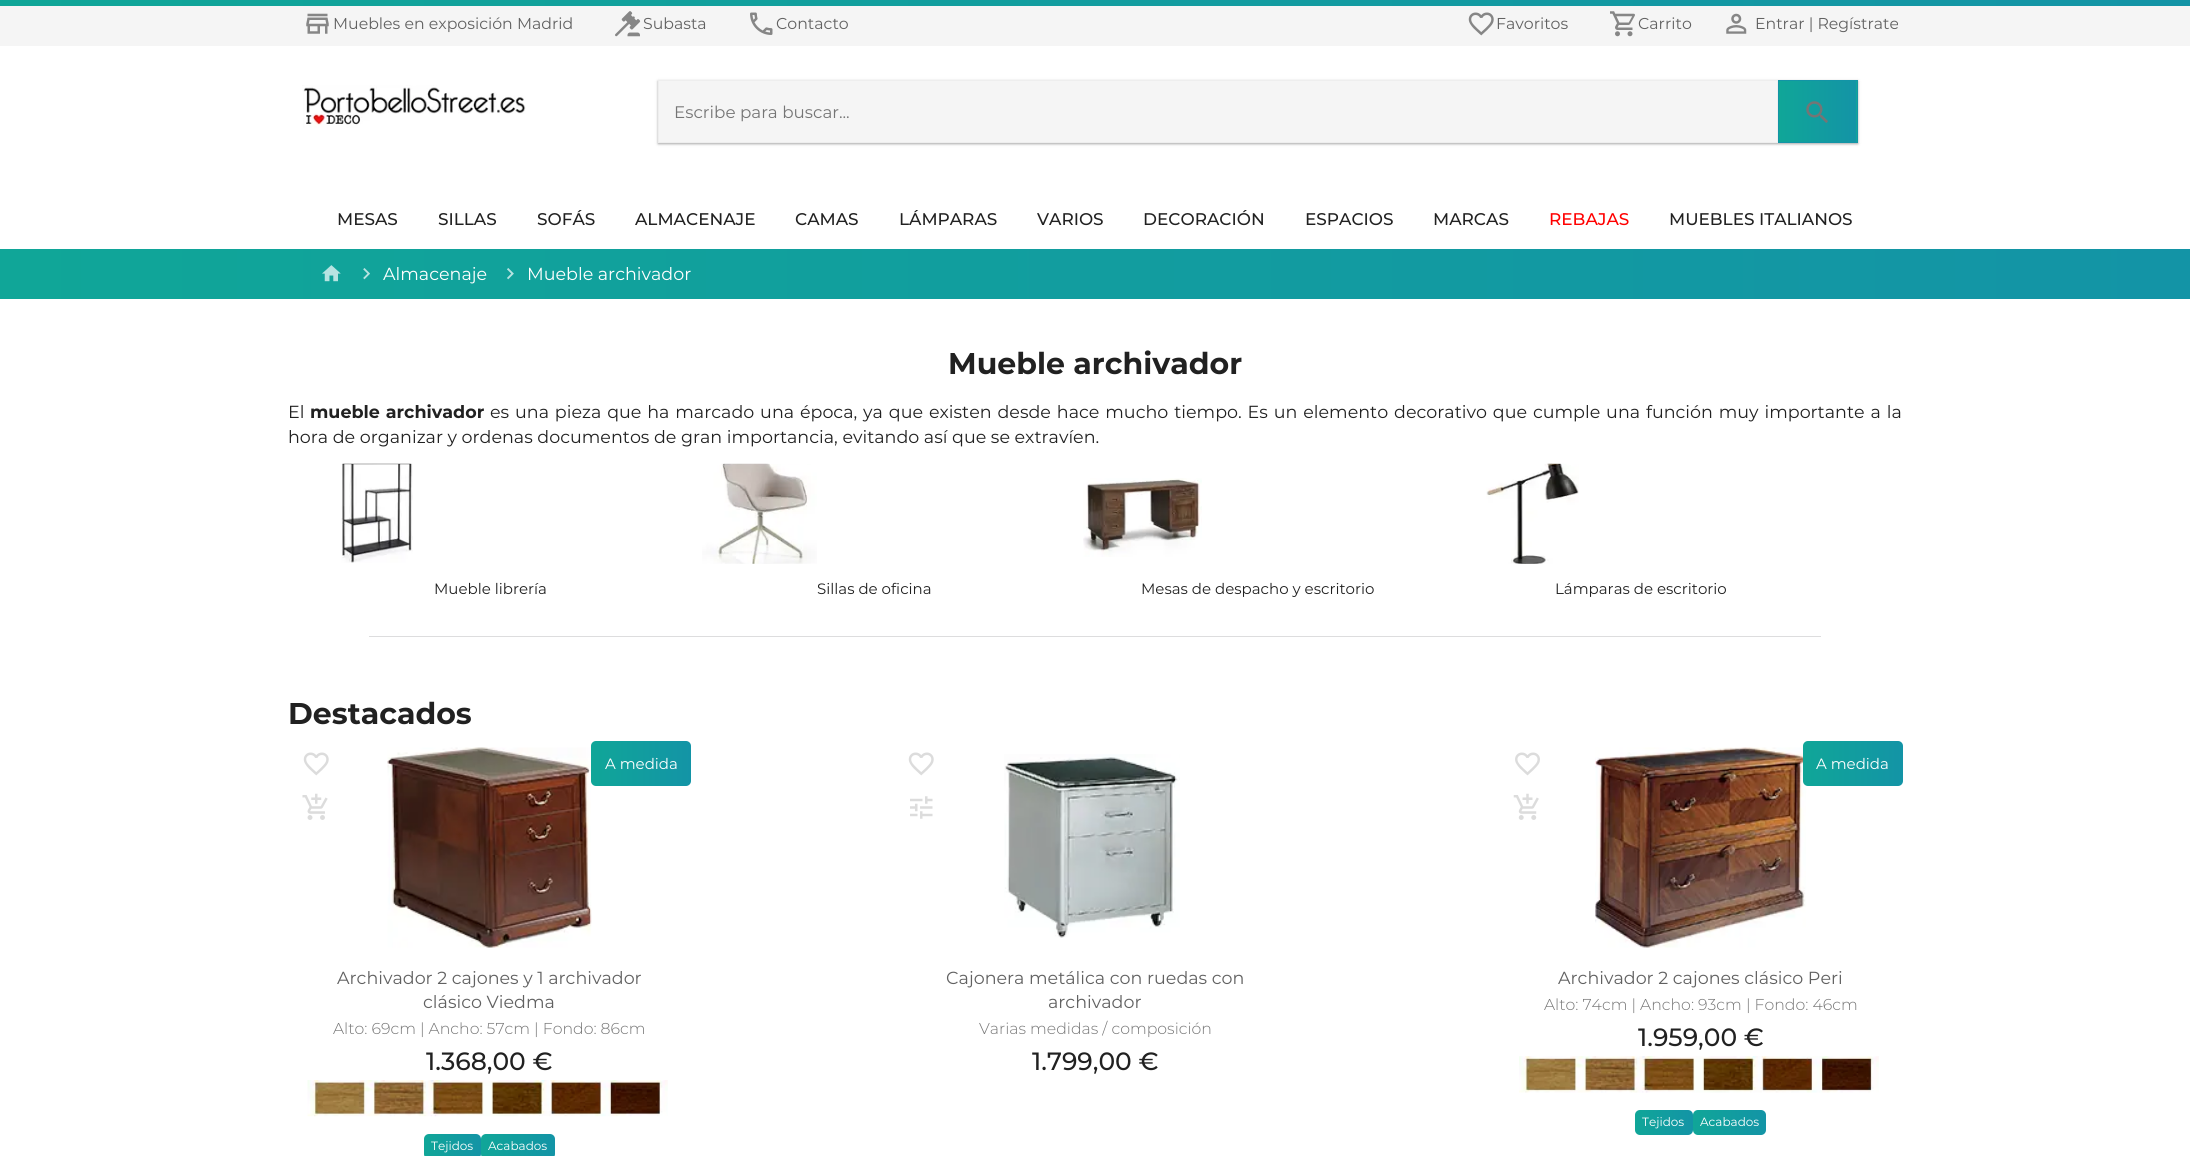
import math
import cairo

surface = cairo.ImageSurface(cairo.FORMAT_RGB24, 2190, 1156)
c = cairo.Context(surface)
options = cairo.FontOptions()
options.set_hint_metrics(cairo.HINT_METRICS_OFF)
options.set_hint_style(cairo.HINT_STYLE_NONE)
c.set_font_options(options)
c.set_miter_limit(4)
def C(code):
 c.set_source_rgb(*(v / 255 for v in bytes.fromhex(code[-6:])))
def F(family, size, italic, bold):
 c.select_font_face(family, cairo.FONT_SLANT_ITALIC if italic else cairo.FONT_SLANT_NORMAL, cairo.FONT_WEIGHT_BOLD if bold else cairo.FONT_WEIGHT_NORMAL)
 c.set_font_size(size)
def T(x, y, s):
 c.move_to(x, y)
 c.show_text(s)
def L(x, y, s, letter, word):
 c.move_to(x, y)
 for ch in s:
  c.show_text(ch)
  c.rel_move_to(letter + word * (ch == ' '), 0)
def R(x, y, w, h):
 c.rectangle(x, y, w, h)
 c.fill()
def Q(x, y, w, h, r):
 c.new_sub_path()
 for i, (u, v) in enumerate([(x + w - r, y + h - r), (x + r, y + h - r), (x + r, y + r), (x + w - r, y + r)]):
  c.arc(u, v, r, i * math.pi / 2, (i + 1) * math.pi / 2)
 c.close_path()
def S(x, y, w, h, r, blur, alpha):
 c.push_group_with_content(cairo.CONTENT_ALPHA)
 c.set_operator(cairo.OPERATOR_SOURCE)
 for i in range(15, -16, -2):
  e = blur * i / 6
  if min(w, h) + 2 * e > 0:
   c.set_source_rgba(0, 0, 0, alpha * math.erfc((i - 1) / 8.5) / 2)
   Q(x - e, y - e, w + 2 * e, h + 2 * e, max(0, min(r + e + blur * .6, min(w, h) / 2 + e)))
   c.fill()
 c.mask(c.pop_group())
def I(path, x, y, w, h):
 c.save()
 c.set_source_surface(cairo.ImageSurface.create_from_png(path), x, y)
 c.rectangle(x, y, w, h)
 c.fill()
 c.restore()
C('ffffff')
c.paint()
C('f5f5f5')
R(0,6,2190,40)
gradient = cairo.LinearGradient(0,3.1,2190,3.1)
gradient.add_color_stop_rgba(0,0.063,0.651,0.596,1)
gradient.add_color_stop_rgba(1,0.075,0.58,0.651,1)
c.set_source(gradient)
R(0,0,2190,6)
I('1.png',306,13,23,21)
F('Montserrat',15.75,0,0)
C('616161')
T(333,29,'Muebles en exposición Madrid')
I('2.png',615,11,26,26)
T(643,29,'Subasta')
I('3.png',750,12,23,23)
T(776,29,'Contacto')
I('4.png',1468,12,26,24)
T(1496,29,'Favoritos')
I('5.png',1610,11,25,26)
T(1638,29,'Carrito')
I('6.png',1726,13,21,21)
T(1755,29,'Entrar | Regístrate')
I('7.png',302,85,224,43)
C('000000')
S(658,81,1200,63,0,1,.24)
S(658,81,1200,63,0,2,.12)
C('f5f5f5')
c.rectangle(658.5,80.5,1119,62)
c.fill_preserve()
C('eeeeee')
c.set_line_width(1)
c.stroke()
F('Montserrat',16.75,0,0)
C('757575')
T(674,118,'Escribe para buscar...')
gradient = cairo.LinearGradient(1779,111,1856,111)
gradient.add_color_stop_rgba(0,0.063,0.651,0.596,1)
gradient.add_color_stop_rgba(1,0.075,0.58,0.651,1)
c.set_source(gradient)
R(1779,81,77,61)
gradient = cairo.LinearGradient(1856,111,1934,111)
gradient.add_color_stop_rgba(0,0.063,0.651,0.596,1)
gradient.add_color_stop_rgba(1,0.075,0.58,0.651,1)
c.set_source(gradient)
R(1856,80,1,63)
c.rectangle(1778.5,80.5,79,62)
C('1394a6')
c.stroke()
I('8.png',1806,101,22,22)
F('Montserrat Medium',16.9,0,0)
C('212121')
T(337,225,'MESAS')
T(438,225,'SILLAS')
T(537,225,'SOFÁS')
T(635,225,'ALMACENAJE')
T(795,225,'CAMAS')
T(899,225,'LÁMPARAS')
T(1037,225,'VARIOS')
T(1143,225,'DECORACIÓN')
T(1305,225,'ESPACIOS')
T(1433,225,'MARCAS')
C('ff0000')
T(1549,225,'REBAJAS')
C('212121')
T(1669,225,'MUEBLES ITALIANOS')
gradient = cairo.LinearGradient(0,274,2190,274)
gradient.add_color_stop_rgba(0,0.063,0.651,0.596,1)
gradient.add_color_stop_rgba(1,0.075,0.58,0.651,1)
c.set_source(gradient)
R(0,249,2190,50)
I('9.png',322,265,19,17)
I('10.png',363,268,7,12)
F('Montserrat',17.5,0,0)
C('ffffff')
T(383,280,'Almacenaje')
I('11.png',507,268,7,12)
T(527,280,'Mueble archivador')
F('Montserrat',30,0,1)
C('212121')
T(948,374,'Mueble archivador')
F('Montserrat',17.5,0,0)
T(288,418,'El')
F('Montserrat',17.5,0,1)
L(310,418,'mueble archivador',0,1)
F('Montserrat',17.5,0,0)
L(490,418,'es una pieza que ha marcado una época, ya que existen desde hace mucho tiempo. Es un elemento decorativo que cumple una función muy importante a la',0,1.3)
T(288,443,'hora de organizar y ordenas documentos de gran importancia, evitando así que se extravíen.')
I('12.png',341,463,72,100)
F('Montserrat',15,0,0)
T(434,594,'Mueble librería')
I('13.png',702,463,115,101)
T(817,594,'Sillas de oficina')
I('14.png',1083,478,119,79)
T(1141,594,'Mesas de despacho y escritorio')
I('15.png',1486,463,93,101)
T(1555,594,'Lámparas de escritorio')
C('ddddde')
R(369,636,1452,1)
F('Montserrat',30,0,1)
C('212121')
T(288,724,'Destacados')
I('16.png',303,752,26,24)
I('17.png',302,793,26,27)
I('18.png',387,747,205,201)
gradient = cairo.LinearGradient(591,764,691,764)
gradient.add_color_stop_rgba(0,0.063,0.651,0.596,1)
gradient.add_color_stop_rgba(1,0.075,0.58,0.651,1)
c.set_source(gradient)
Q(591,741,100,45,5)
c.fill()
F('Montserrat',15,0,0)
C('ffffff')
T(605,769,'A medida')
F('Montserrat',17.5,0,0)
C('616161')
T(337,984,'Archivador 2 cajones y 1 archivador')
T(423,1008,'clásico Viedma')
F('Montserrat Light',15.75,0,0)
C('757575')
T(333,1034,'Alto: 69cm | Ancho: 57cm | Fondo: 86cm')
F('Montserrat Medium',25,0,0)
C('212121')
T(426,1070,'1.368,00 €')
I('19.png',307,1080,361,37)
gradient = cairo.LinearGradient(424,1146,481,1146)
gradient.add_color_stop_rgba(0,0.063,0.651,0.596,1)
gradient.add_color_stop_rgba(1,0.075,0.58,0.651,1)
c.set_source(gradient)
Q(424,1134,57,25,5)
c.fill()
F('Montserrat',12,0,0)
C('ffffff')
T(431,1150,'Tejidos')
gradient = cairo.LinearGradient(481,1146,555,1146)
gradient.add_color_stop_rgba(0,0.063,0.651,0.596,1)
gradient.add_color_stop_rgba(1,0.075,0.58,0.651,1)
c.set_source(gradient)
Q(481,1134,74,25,5)
c.fill()
C('ffffff')
T(488,1150,'Acabados')
I('16.png',908,752,26,24)
I('20.png',910,796,23,23)
I('21.png',1004,754,176,184)
F('Montserrat',17.5,0,0)
C('616161')
T(946,984,'Cajonera metálica con ruedas con')
T(1048,1008,'archivador')
F('Montserrat Light',15.75,0,0)
C('757575')
T(979,1034,'Varias medidas / composición')
F('Montserrat Medium',25,0,0)
C('212121')
T(1032,1070,'1.799,00 €')
I('22.png',1515,752,25,24)
I('23.png',1513,793,26,27)
I('24.png',1595,747,212,201)
gradient = cairo.LinearGradient(1803,764,1903,764)
gradient.add_color_stop_rgba(0,0.063,0.651,0.596,1)
gradient.add_color_stop_rgba(1,0.075,0.58,0.651,1)
c.set_source(gradient)
Q(1803,741,100,45,5)
c.fill()
F('Montserrat',15,0,0)
C('ffffff')
T(1816,769,'A medida')
F('Montserrat',17.5,0,0)
C('616161')
T(1558,984,'Archivador 2 cajones clásico Peri')
F('Montserrat Light',15.75,0,0)
C('757575')
T(1544,1010,'Alto: 74cm | Ancho: 93cm | Fondo: 46cm')
F('Montserrat Medium',25,0,0)
C('212121')
T(1638,1046,'1.959,00 €')
I('25.png',1519,1056,360,37)
gradient = cairo.LinearGradient(1635,1123,1693,1123)
gradient.add_color_stop_rgba(0,0.063,0.651,0.596,1)
gradient.add_color_stop_rgba(1,0.075,0.58,0.651,1)
c.set_source(gradient)
Q(1635,1110,58,25,5)
c.fill()
F('Montserrat',12,0,0)
C('ffffff')
T(1642,1126,'Tejidos')
gradient = cairo.LinearGradient(1693,1123,1766,1123)
gradient.add_color_stop_rgba(0,0.063,0.651,0.596,1)
gradient.add_color_stop_rgba(1,0.075,0.58,0.651,1)
c.set_source(gradient)
Q(1693,1110,73,25,5)
c.fill()
C('ffffff')
T(1700,1126,'Acabados')
surface.write_to_png('o.png')
